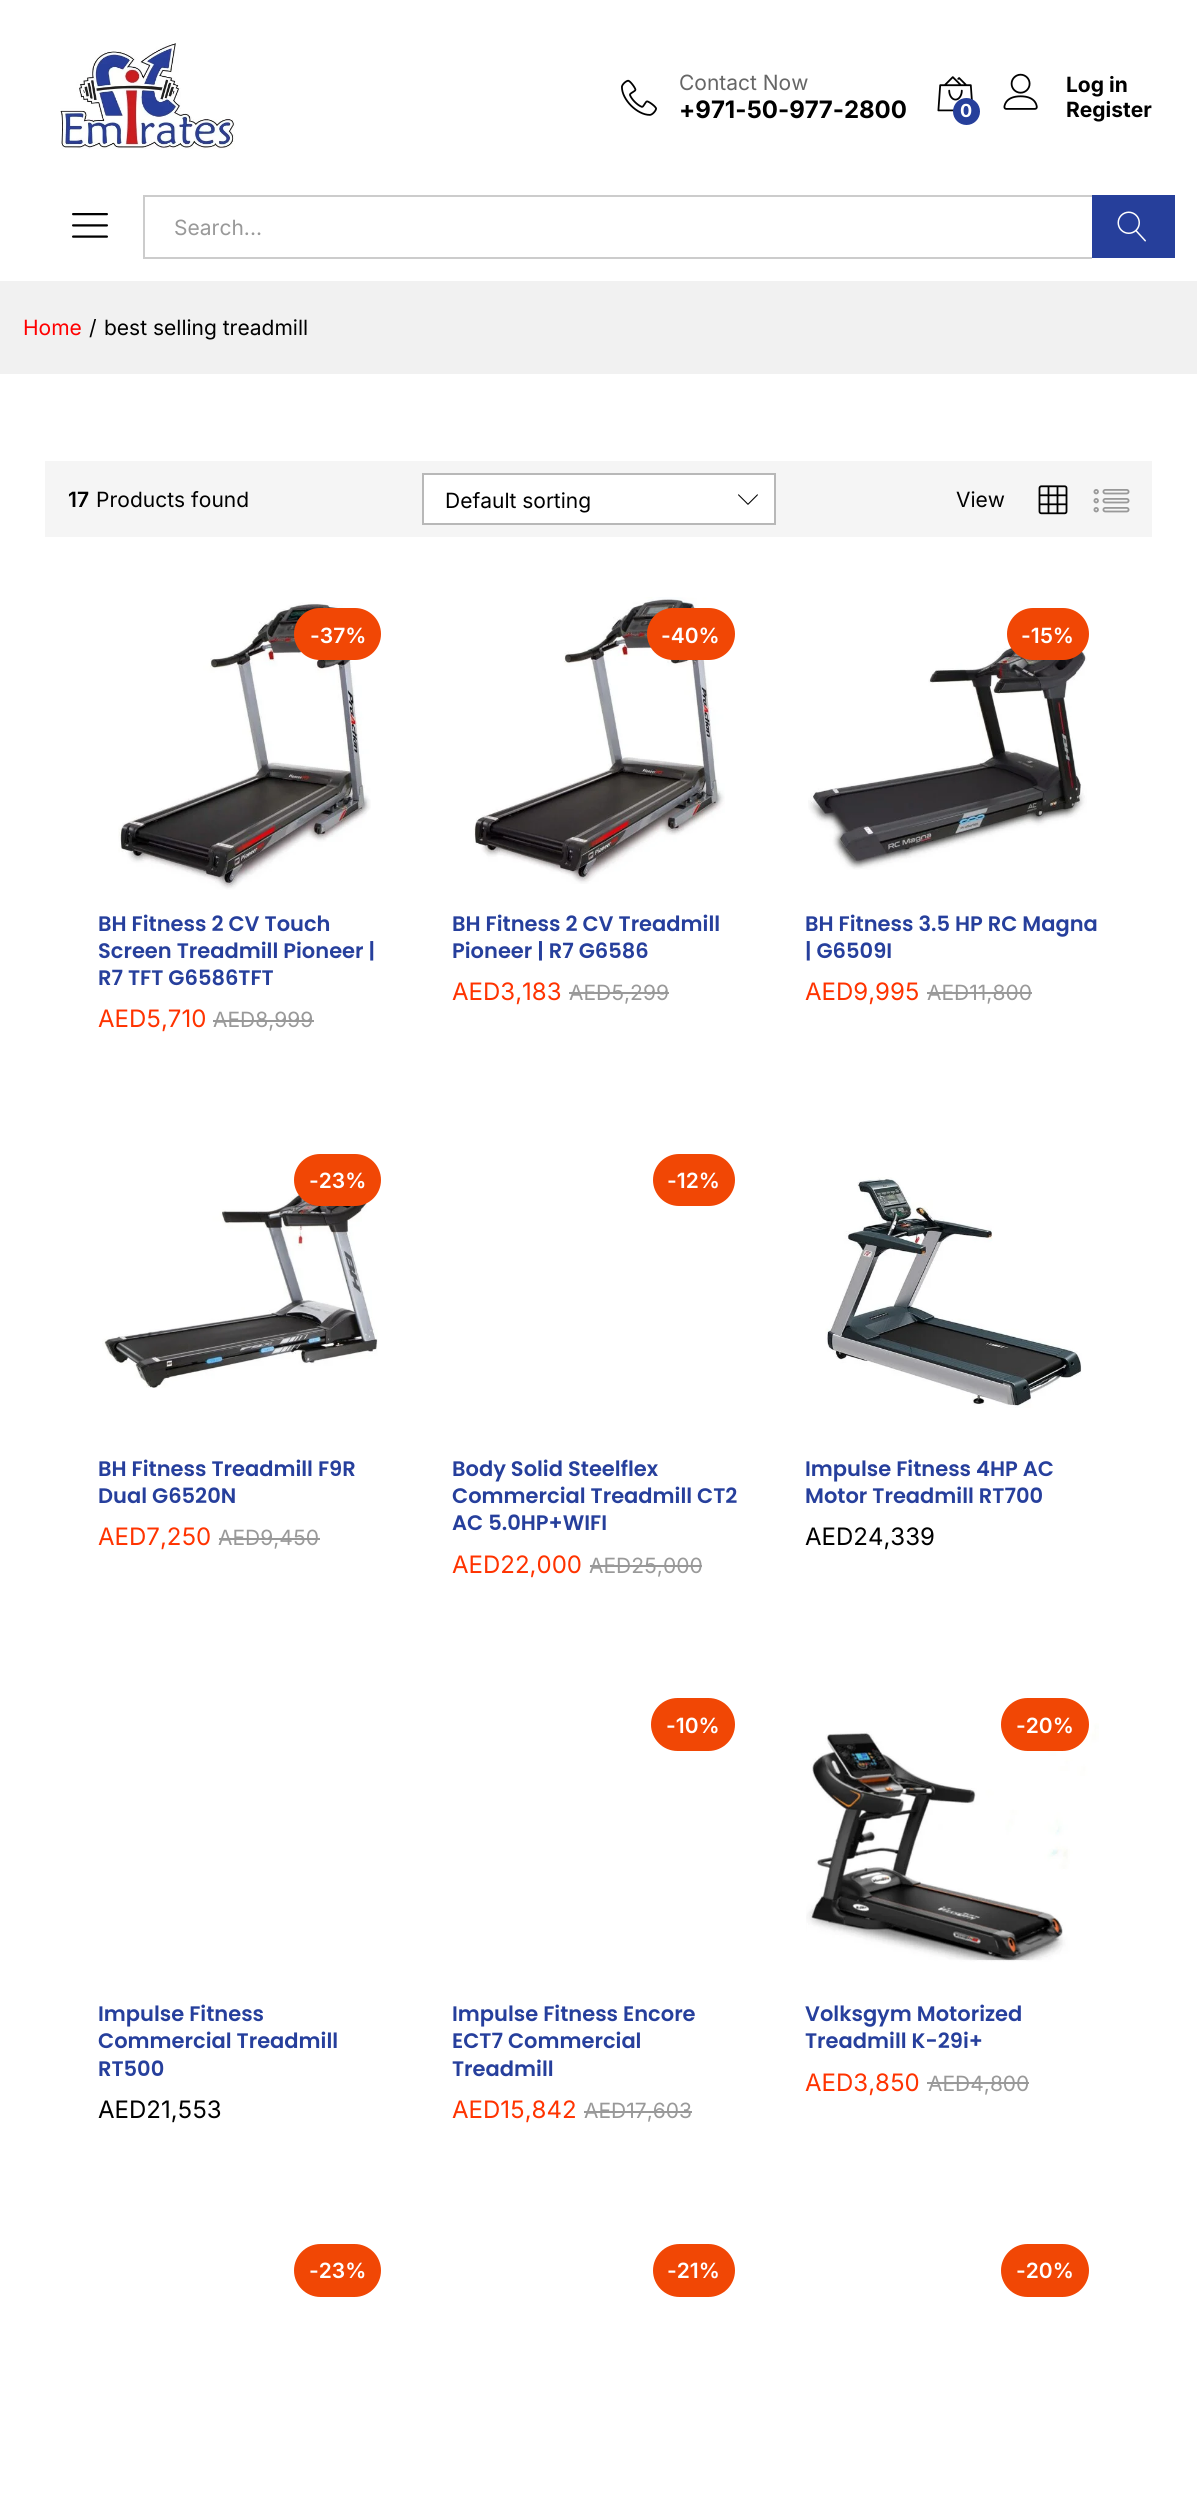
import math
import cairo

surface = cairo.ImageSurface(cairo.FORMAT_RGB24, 1197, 2506)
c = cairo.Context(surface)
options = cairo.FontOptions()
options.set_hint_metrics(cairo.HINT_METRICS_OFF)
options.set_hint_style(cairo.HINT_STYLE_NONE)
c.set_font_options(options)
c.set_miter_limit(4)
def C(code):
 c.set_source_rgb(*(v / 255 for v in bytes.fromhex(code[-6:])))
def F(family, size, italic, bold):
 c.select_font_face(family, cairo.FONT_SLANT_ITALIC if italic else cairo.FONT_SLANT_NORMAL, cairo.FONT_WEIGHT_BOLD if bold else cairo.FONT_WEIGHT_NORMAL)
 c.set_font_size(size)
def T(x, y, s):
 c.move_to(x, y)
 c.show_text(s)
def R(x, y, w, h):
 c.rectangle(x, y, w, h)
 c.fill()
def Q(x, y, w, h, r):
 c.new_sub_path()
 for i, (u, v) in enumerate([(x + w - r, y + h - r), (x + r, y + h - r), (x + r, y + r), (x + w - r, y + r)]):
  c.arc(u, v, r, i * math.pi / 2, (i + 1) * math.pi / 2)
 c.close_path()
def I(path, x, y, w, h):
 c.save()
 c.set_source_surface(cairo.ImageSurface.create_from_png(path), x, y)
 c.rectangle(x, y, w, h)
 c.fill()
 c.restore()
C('ffffff')
c.paint()
I('1.png',60,43,175,106)
I('2.png',621,79,36,37)
F('Inter',21,0,0)
C('666666')
T(679,90,'Contact Now')
F('Inter',24,0,1)
C('000000')
T(679,118,'+971-50-977-2800')
I('3.png',937,76,36,36)
C('263f9b')
c.arc(966.5,111.5,13.5,0,2 * math.pi)
c.fill()
F('Inter',18,0,1)
C('ffffff')
T(960,117,'0')
I('4.png',1003,73,35,37)
F('Inter',21,0,1)
C('000000')
T(1066,92,'Log in')
T(1066,117,'Register')
I('5.png',72,213,36,25)
C('cccccc')
R(143,195,949,2)
R(143,257,949,2)
R(143,195,2,63)
F('Inter',21,0,0)
C('999999')
T(174,235,'Search...')
C('263f9b')
R(1092,195,83,63)
I('6.png',1117,211,29,31)
C('f1f1f1')
R(0,281,1197,93)
C('ff0000')
T(23,335,'Home')
C('000000')
T(89,335,'/')
T(104,335,'best selling treadmill')
C('f5f5f5')
R(45,461,1107,76)
F('Inter SemiBold',21,0,0)
C('000000')
T(68,507,'17')
F('Inter',21,0,0)
T(96,507,'Products found')
C('ffffff')
c.rectangle(423,474,352,50)
c.fill_preserve()
C('b8b8b8')
c.stroke()
C('000000')
T(445,508,'Default sorting')
I('7.png',738,494,20,11)
T(956,507,'View')
I('8.png',1038,485,30,30)
I('9.png',1093,489,37,24)
I('10.png',118,602,253,288)
C('f14705')
Q(294,608,87,52,26)
c.fill()
F('Inter SemiBold',21,0,0)
C('ffffff')
T(310,643,'-37%')
F('Poppins SemiBold',21,0,0)
C('263f9c')
T(98,931,'BH Fitness 2 CV Touch')
T(98,958,'Screen Treadmill Pioneer |')
T(98,985,'R7 TFT G6586TFT')
F('Inter',24,0,0)
C('ff3300')
T(98,1027,'AED5,710')
F('Inter',21,0,0)
C('999999')
T(213,1027,'AED8,999')
R(213,1020,101,2)
I('11.png',473,597,252,287)
C('f14705')
Q(647,608,88,52,26)
c.fill()
F('Inter SemiBold',21,0,0)
C('ffffff')
T(661,643,'-40%')
F('Poppins SemiBold',21,0,0)
C('263f9c')
T(452,931,'BH Fitness 2 CV Treadmill')
T(452,958,'Pioneer | R7 G6586')
F('Inter',24,0,0)
C('ff3300')
T(452,1000,'AED3,183')
F('Inter',21,0,0)
C('999999')
T(569,1000,'AED5,299')
R(569,992,100,2)
I('12.png',808,625,279,245)
C('f14705')
Q(1007,608,82,52,26)
c.fill()
F('Inter SemiBold',21,0,0)
C('ffffff')
T(1021,643,'-15%')
F('Poppins SemiBold',21,0,0)
C('263f9c')
T(805,931,'BH Fitness 3.5 HP RC Magna')
T(805,958,'| G6509I')
F('Inter',24,0,0)
C('ff3300')
T(805,1000,'AED9,995')
F('Inter',21,0,0)
C('999999')
T(927,1000,'AED11,800')
R(927,992,105,2)
I('13.png',102,1168,276,220)
C('f14705')
Q(294,1154,87,52,26)
c.fill()
F('Inter SemiBold',21,0,0)
C('ffffff')
T(309,1188,'-23%')
F('Poppins SemiBold',21,0,0)
C('263f9c')
T(98,1476,'BH Fitness Treadmill F9R')
T(98,1503,'Dual G6520N')
F('Inter',24,0,0)
C('ff3300')
T(98,1545,'AED7,250')
F('Inter',21,0,0)
C('999999')
T(218,1545,'AED9,450')
R(219,1538,101,2)
C('f14705')
Q(653,1154,82,52,26)
c.fill()
F('Inter SemiBold',21,0,0)
C('ffffff')
T(667,1188,'-12%')
F('Poppins SemiBold',21,0,0)
C('263f9c')
T(452,1476,'Body Solid Steelflex')
T(452,1503,'Commercial Treadmill CT2')
T(452,1530,'AC 5.0HP+WIFI')
F('Inter',24,0,0)
C('ff3300')
T(452,1573,'AED22,000')
F('Inter',21,0,0)
C('999999')
T(589,1573,'AED25,000')
R(590,1565,112,2)
I('14.png',825,1177,257,231)
F('Poppins SemiBold',21,0,0)
C('263f9c')
T(805,1476,'Impulse Fitness 4HP AC')
T(805,1503,'Motor Treadmill RT700')
F('Inter',24,0,0)
C('000000')
T(805,1545,'AED24,339')
F('Poppins SemiBold',21,0,0)
C('263f9c')
T(98,2021,'Impulse Fitness')
T(98,2048,'Commercial Treadmill')
T(98,2076,'RT500')
F('Inter',24,0,0)
C('000000')
T(98,2118,'AED21,553')
C('f14705')
Q(651,1698,84,53,26.5)
c.fill()
F('Inter SemiBold',21,0,0)
C('ffffff')
T(666,1733,'-10%')
F('Poppins SemiBold',21,0,0)
C('263f9c')
T(452,2021,'Impulse Fitness Encore')
T(452,2048,'ECT7 Commercial')
T(452,2076,'Treadmill')
F('Inter',24,0,0)
C('ff3300')
T(452,2118,'AED15,842')
F('Inter',21,0,0)
C('999999')
T(584,2118,'AED17,603')
R(584,2111,108,2)
I('15.png',806,1723,293,239)
C('f14705')
Q(1001,1698,88,53,26.5)
c.fill()
F('Inter SemiBold',21,0,0)
C('ffffff')
T(1016,1733,'-20%')
F('Poppins SemiBold',21,0,0)
C('263f9c')
T(805,2021,'Volksgym Motorized')
T(805,2048,'Treadmill K-29i+')
F('Inter',24,0,0)
C('ff3300')
T(805,2091,'AED3,850')
F('Inter',21,0,0)
C('999999')
T(928,2091,'AED4,800')
R(927,2082,102,2)
C('f14705')
Q(294,2244,87,53,26.5)
c.fill()
F('Inter SemiBold',21,0,0)
C('ffffff')
T(309,2278,'-23%')
C('f14705')
Q(653,2244,82,53,26.5)
c.fill()
C('ffffff')
T(667,2278,'-21%')
C('f14705')
Q(1001,2244,88,53,26.5)
c.fill()
C('ffffff')
T(1016,2278,'-20%')
surface.write_to_png('o.png')
